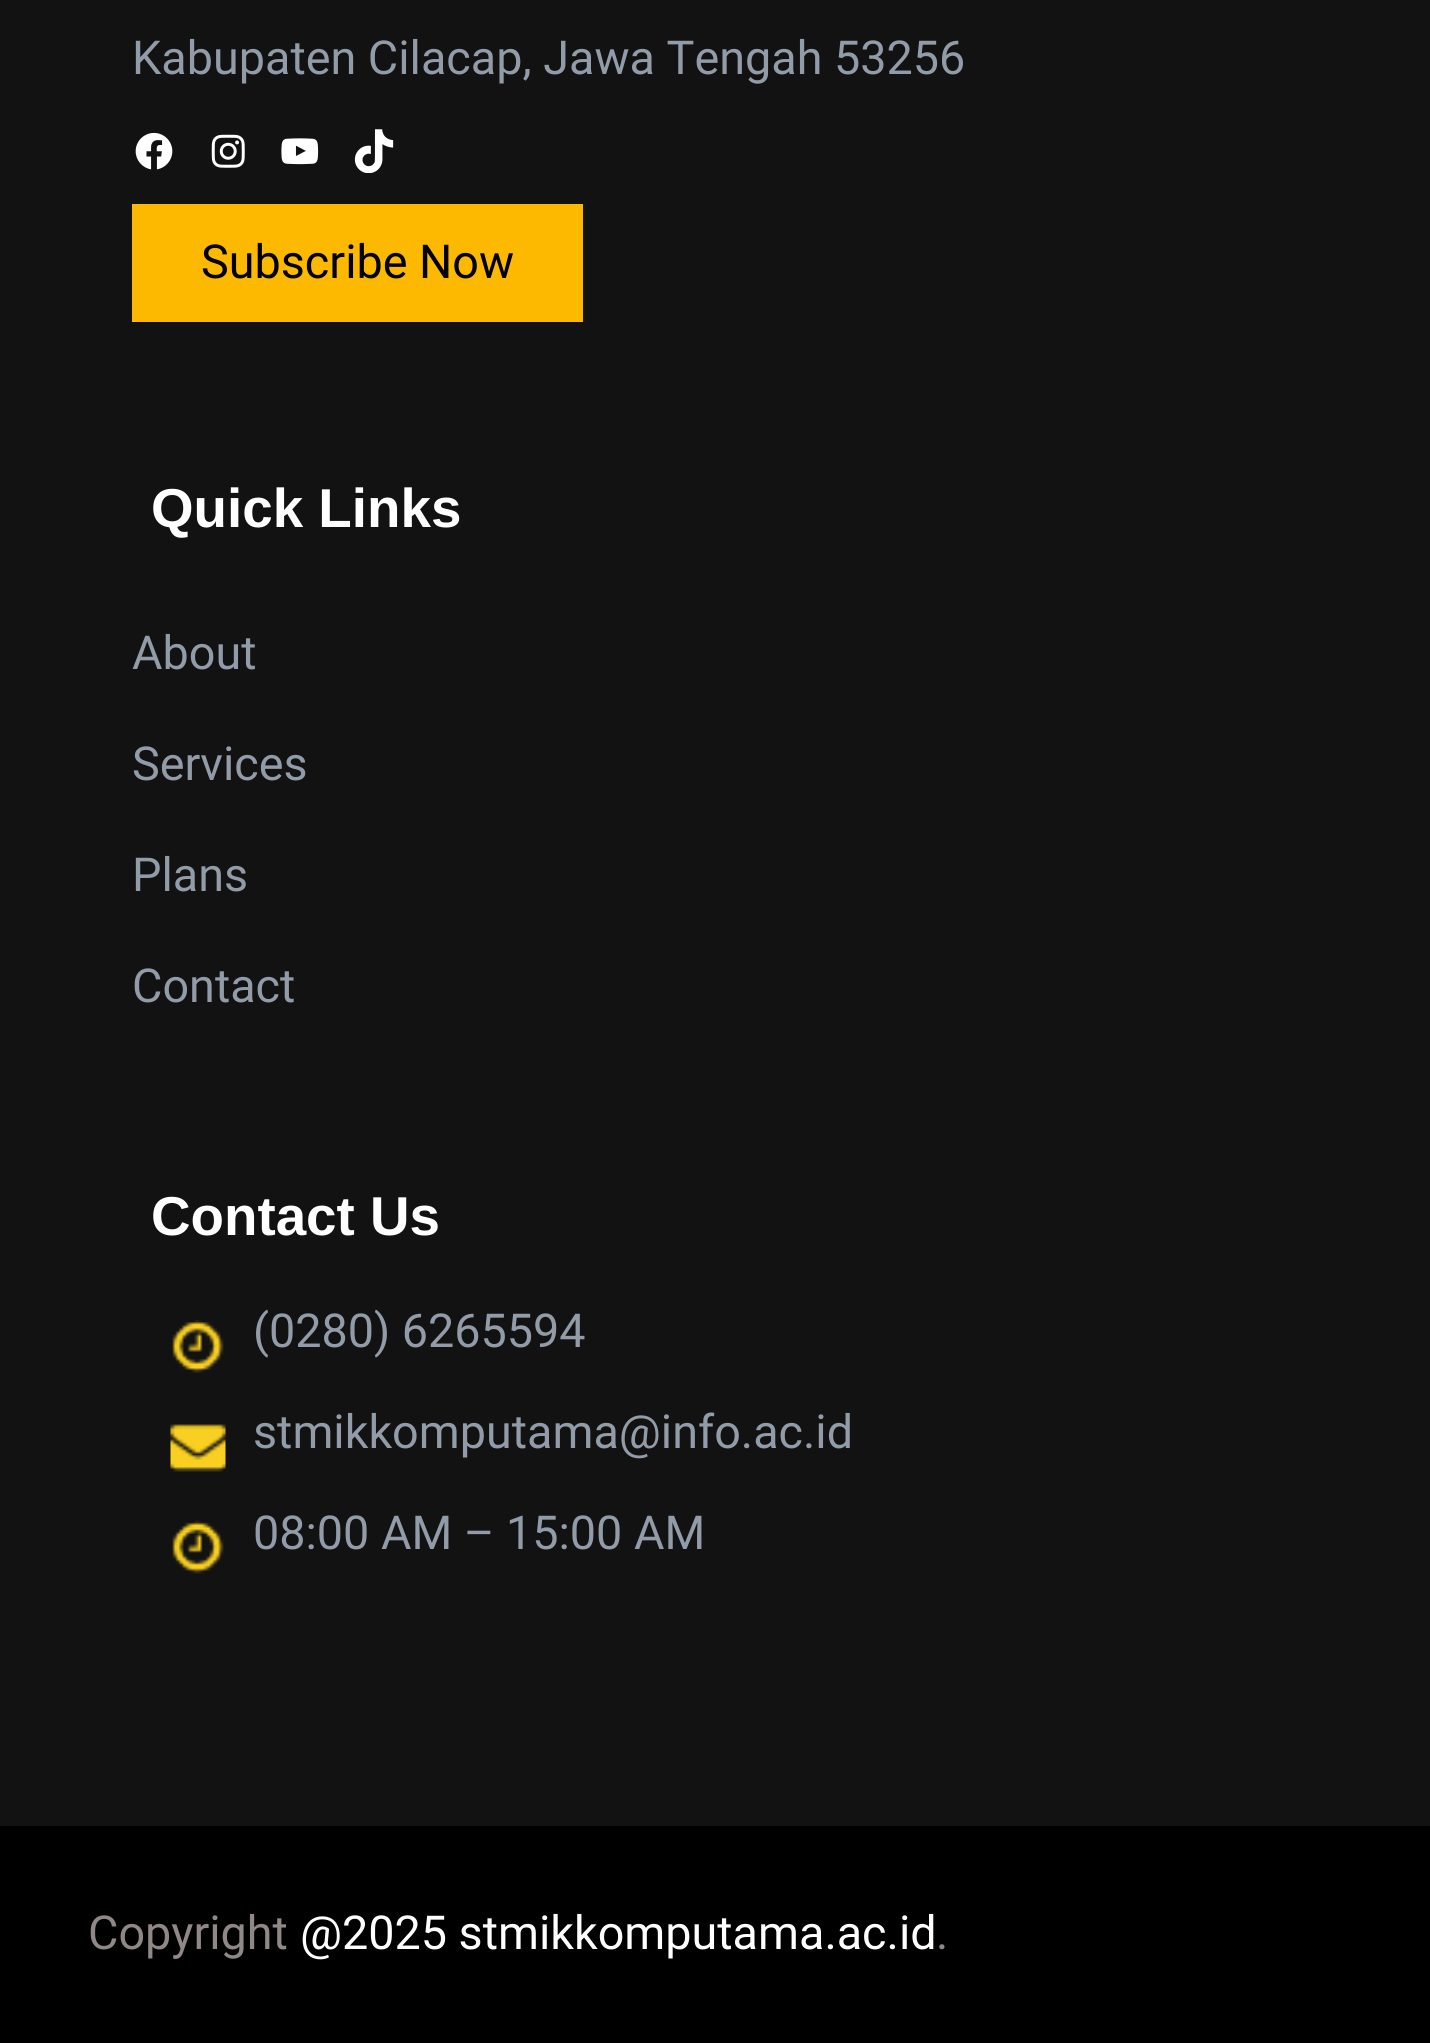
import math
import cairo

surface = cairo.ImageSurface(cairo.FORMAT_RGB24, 1430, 2043)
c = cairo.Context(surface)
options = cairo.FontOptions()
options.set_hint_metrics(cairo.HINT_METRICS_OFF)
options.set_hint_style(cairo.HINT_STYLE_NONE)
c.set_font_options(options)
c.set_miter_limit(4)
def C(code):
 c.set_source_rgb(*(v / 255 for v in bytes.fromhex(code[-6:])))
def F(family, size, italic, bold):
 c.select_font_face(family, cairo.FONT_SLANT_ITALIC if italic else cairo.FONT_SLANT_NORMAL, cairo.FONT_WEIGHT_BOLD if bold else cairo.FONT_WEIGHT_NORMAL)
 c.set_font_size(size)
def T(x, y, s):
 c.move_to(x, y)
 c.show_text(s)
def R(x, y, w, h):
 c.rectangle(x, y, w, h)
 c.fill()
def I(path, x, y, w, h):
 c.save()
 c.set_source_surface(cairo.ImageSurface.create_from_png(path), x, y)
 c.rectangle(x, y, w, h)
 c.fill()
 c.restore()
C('121212')
c.paint()
F('Roboto',46.75,0,0)
C('929ba8')
T(132,74,'Kabupaten Cilacap, Jawa Tengah 53256')
I('1.png',135,132,38,38)
I('2.png',211,134,34,34)
I('3.png',281,138,38,27)
I('4.png',354,129,40,44)
C('fcb900')
R(132,204,451,118)
C('000000')
T(201,278,'Subscribe Now')
F('Liberation Sans',54.75,0,1)
C('ffffff')
T(151,527,'Quick Links')
F('Roboto',46.75,0,0)
C('929ba8')
T(132,669,'About')
T(132,780,'Services')
T(132,891,'Plans')
T(132,1002,'Contact')
F('Liberation Sans',54.75,0,1)
C('ffffff')
T(151,1235,'Contact Us')
I('5.png',172,1320,52,53)
F('Roboto',46.75,0,0)
C('929ba8')
T(253,1347,'(0280) 6265594')
I('6.png',170,1424,56,48)
T(253,1448,'stmikkomputama@info.ac.id')
I('7.png',172,1520,52,54)
T(253,1549,'08:00 AM – 15:00 AM')
C('000000')
R(0,1826,1430,217)
C('908787')
T(88,1949,'Copyright')
C('ffffff')
T(300,1949,'@2025 stmikkomputama.ac.id')
C('908787')
T(936,1949,'.')
surface.write_to_png('o.png')
